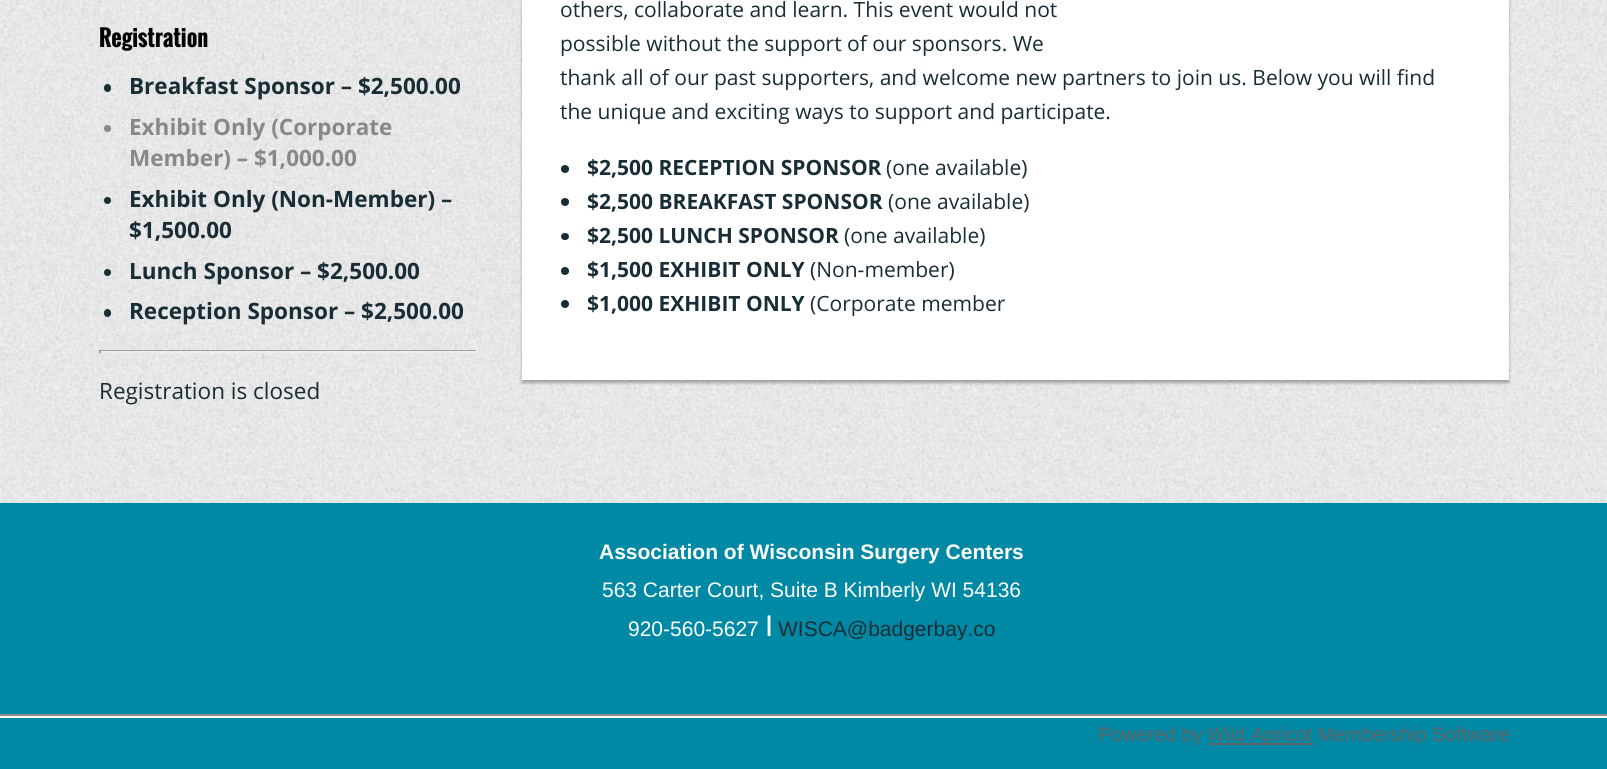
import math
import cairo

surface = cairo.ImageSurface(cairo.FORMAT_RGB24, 1607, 769)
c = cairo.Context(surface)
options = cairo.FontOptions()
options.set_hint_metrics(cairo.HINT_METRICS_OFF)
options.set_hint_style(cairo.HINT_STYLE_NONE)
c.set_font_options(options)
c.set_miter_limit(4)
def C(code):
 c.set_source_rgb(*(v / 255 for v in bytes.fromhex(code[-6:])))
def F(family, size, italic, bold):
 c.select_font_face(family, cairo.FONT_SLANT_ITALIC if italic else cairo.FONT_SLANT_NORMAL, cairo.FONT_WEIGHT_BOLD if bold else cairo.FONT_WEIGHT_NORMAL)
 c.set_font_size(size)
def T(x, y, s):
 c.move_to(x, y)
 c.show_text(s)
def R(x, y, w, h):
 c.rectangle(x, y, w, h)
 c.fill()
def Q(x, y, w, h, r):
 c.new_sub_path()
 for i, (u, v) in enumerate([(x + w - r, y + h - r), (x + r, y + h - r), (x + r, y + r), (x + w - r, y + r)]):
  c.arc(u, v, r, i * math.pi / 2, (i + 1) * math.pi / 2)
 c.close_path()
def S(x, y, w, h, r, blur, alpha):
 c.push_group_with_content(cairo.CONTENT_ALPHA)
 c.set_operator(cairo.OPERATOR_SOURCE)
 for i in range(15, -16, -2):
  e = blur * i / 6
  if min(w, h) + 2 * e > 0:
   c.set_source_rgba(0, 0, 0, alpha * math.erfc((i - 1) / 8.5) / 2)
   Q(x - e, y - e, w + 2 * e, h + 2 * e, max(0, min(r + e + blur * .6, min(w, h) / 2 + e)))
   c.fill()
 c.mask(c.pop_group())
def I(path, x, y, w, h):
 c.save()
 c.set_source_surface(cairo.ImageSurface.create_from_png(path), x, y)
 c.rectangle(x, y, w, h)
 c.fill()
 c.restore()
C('ffffff')
c.paint()
I('1.png',0,0,1607,503)
F('Oswald',22.5,0,1)
C('000000')
T(99,47,'Registration')
C('182d35')
Q(104,84,7,8,3.5)
c.fill()
F('Open Sans',22.5,0,1)
T(129,94,'Breakfast Sponsor – $2,500.00')
C('888888')
c.new_path()
c.arc(107.5,128.5,3.5,0,2 * math.pi)
c.fill()
T(129,135,'Exhibit Only (Corporate')
T(129,166,'Member) – $1,000.00')
C('182d35')
c.new_path()
c.arc(107.5,200.5,3.5,0,2 * math.pi)
c.fill()
T(129,207,'Exhibit Only (Non-Member) –')
T(129,238,'$1,500.00')
c.new_path()
c.arc(107.5,272.5,3.5,0,2 * math.pi)
c.fill()
T(129,279,'Lunch Sponsor – $2,500.00')
Q(104,309,7,8,3.5)
c.fill()
T(129,319,'Reception Sponsor – $2,500.00')
C('9f9f9f')
R(99,350,378,1)
C('eeeeee')
R(476,350,2,3)
R(99,351,378,2)
C('9f9f9f')
R(99,350,2,3)
F('Open Sans',22.5,0,0)
C('182d35')
T(99,399,'Registration is closed')
C('000000')
S(522,-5,987,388,0,1.5,.3)
C('ffffff')
R(522,0,987,380)
F('Open Sans',21,0,0)
C('182d35')
T(560,17,'others, collaborate and learn. This event would not')
T(560,51,'possible without the support of our sponsors. We')
T(560,85,'thank all of our past supporters, and welcome new partners to join us. Below you will find')
T(560,119,'the unique and exciting ways to support and participate.')
c.new_path()
c.arc(565,169,4,0,2 * math.pi)
c.fill()
F('Open Sans',21,0,1)
T(587,175,'$2,500 RECEPTION SPONSOR')
F('Open Sans',21,0,0)
T(886,175,'(one available)')
c.new_path()
c.arc(565,202,4,0,2 * math.pi)
c.fill()
F('Open Sans',21,0,1)
T(587,209,'$2,500 BREAKFAST SPONSOR')
F('Open Sans',21,0,0)
T(888,209,'(one available)')
Q(561,233,8,7,3.5)
c.fill()
F('Open Sans',21,0,1)
T(587,243,'$2,500 LUNCH SPONSOR')
F('Open Sans',21,0,0)
T(844,243,'(one available)')
c.new_path()
c.arc(565,271,4,0,2 * math.pi)
c.fill()
F('Open Sans',21,0,1)
T(587,277,'$1,500 EXHIBIT ONLY')
F('Open Sans',21,0,0)
T(810,277,'(Non-member)')
c.new_path()
c.arc(565,304,4,0,2 * math.pi)
c.fill()
F('Open Sans',21,0,1)
T(587,311,'$1,000 EXHIBIT ONLY')
F('Open Sans',21,0,0)
T(810,311,'(Corporate member')
C('0089a5')
R(0,503,1607,211)
F('Liberation Sans',21,0,1)
C('ffffff')
T(599,559,'Association of Wisconsin Surgery Centers')
F('Liberation Sans',21,0,0)
T(602,597,'563 Carter Court, Suite B Kimberly WI 54136')
T(628,636,'920-560-5627')
F('Carlito',32,0,0)
T(765,636,'I')
F('Liberation Sans',21,0,0)
C('182d35')
T(778,636,'WISCA@badgerbay.co')
C('0089a5')
R(0,718,1607,51)
C('8d8d8d')
R(0,714,1607,2)
F('Liberation Sans',19.75,0,0)
C('646464')
T(1098,741,'Powered by')
R(1208,743,105,2)
T(1207,741,'Wild Apricot Membership Software')
surface.write_to_png('o.png')
